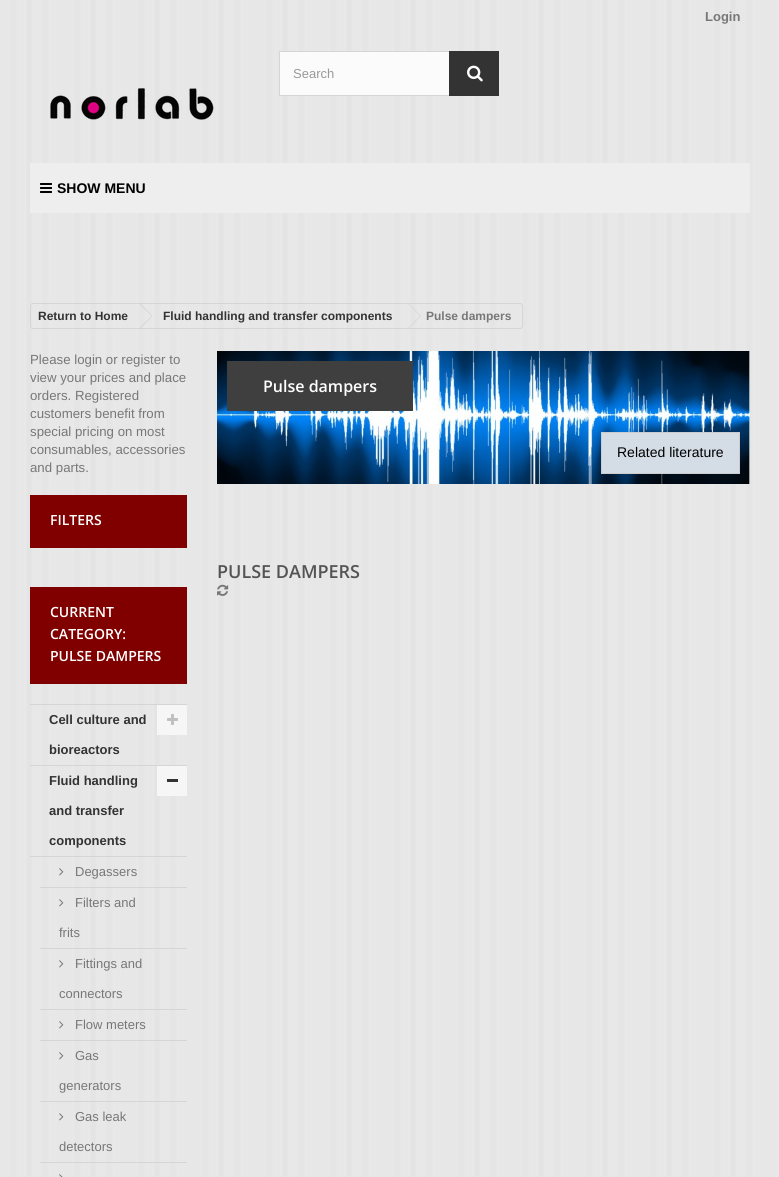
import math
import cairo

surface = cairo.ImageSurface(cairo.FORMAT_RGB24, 779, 1177)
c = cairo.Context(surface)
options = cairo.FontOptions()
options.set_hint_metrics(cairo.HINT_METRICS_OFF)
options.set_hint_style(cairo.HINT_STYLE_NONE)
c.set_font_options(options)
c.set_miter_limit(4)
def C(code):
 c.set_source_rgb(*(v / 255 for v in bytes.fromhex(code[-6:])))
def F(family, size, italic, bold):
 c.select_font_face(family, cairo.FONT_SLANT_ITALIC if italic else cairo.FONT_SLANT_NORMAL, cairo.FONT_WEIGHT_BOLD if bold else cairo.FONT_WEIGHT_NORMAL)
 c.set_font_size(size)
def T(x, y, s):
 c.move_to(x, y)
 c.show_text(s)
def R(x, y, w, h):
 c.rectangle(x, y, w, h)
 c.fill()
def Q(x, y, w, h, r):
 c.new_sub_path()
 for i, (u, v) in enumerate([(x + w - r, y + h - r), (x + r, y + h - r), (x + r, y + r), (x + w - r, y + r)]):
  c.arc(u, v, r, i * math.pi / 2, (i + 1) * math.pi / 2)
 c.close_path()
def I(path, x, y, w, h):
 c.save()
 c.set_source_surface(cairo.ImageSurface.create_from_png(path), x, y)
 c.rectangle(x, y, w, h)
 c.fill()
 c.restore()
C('ececec')
c.paint()
I('1.png',0,0,779,1177)
F('Liberation Sans',13,0,1)
C('777777')
T(705,21,'Login')
C('fbfbfb')
R(280,52,169,43)
c.rectangle(279.5,51.5,219,44)
C('d6d4d4')
c.set_line_width(1)
c.stroke()
F('Liberation Sans',13,0,0)
C('999999')
T(293,78,'Search')
C('333333')
R(449,51,50,45)
I('2.png',467,65,16,17)
I('3.png',50,88,164,32)
C('eeeeee')
R(30,163,720,50)
I('4.png',40,183,12,10)
F('Liberation Sans',14,0,1)
C('000000')
T(57,193,'SHOW MENU')
Q(30.5,303.5,492,25,2.5)
C('d6d4d4')
c.stroke()
F('Liberation Sans',12,0,1)
C('333333')
T(38,320,'Return to Home')
C('d6d4d4')
c.new_path()
c.move_to(141,304)
c.line_to(152,315.5)
c.line_to(151.5,316)
c.line_to(140,304.5)
c.close_path()
c.move_to(151.5,316)
c.line_to(152,316.5)
c.line_to(141,328)
c.line_to(140,327.5)
c.close_path()
c.fill()
C('333333')
T(163,320,'Fluid handling and transfer components')
C('d6d4d4')
c.new_path()
c.move_to(409,304)
c.line_to(420.5,315.5)
c.line_to(420,316)
c.line_to(408.5,304.5)
c.close_path()
c.move_to(420,316)
c.line_to(420.5,316.5)
c.line_to(409,328)
c.line_to(408.5,327.5)
c.close_path()
c.fill()
C('777777')
T(426,320,'Pulse dampers')
F('Liberation Sans',13.25,0,0)
T(30,364,'Please login or register to')
T(30,382,'view your prices and place')
T(30,400,'orders. Registered')
T(30,418,'customers benefit from')
T(30,436,'special pricing on most')
T(30,454,'consumables, accessories')
T(30,472,'and parts.')
C('800000')
R(30,495,157,53)
F('Open Sans SemiBold',14,0,0)
C('ffffff')
T(50,525,'FILTERS')
C('800000')
R(30,587,157,97)
C('ffffff')
T(50,617,'CURRENT')
T(50,639,'CATEGORY:')
T(50,661,'PULSE DAMPERS')
C('d6d4d4')
R(30,704,157,1)
R(30,765,157,1)
F('Liberation Sans',13,0,1)
C('333333')
T(49,724,'Cell culture and')
T(49,754,'bioreactors')
C('f6f6f6')
R(157,705,30,30)
I('5.png',167,714,11,11)
C('d6d4d4')
R(30,856,157,1)
C('333333')
T(49,785,'Fluid handling')
T(49,815,'and transfer')
T(49,845,'components')
C('f6f6f6')
R(157,766,30,30)
C('333333')
R(167,779,11,3)
C('d6d4d4')
R(40,887,147,1)
I('6.png',59,868,5,8)
F('Liberation Sans',13,0,0)
C('777777')
T(75,876,'Degassers')
C('d6d4d4')
R(40,948,147,1)
I('6.png',59,899,5,8)
C('777777')
T(75,907,'Filters and')
T(59,937,'frits')
C('d6d4d4')
R(40,1009,147,1)
I('6.png',59,960,5,8)
C('777777')
T(75,968,'Fittings and')
T(59,998,'connectors')
C('d6d4d4')
R(40,1040,147,1)
I('6.png',59,1021,5,8)
C('777777')
T(75,1029,'Flow meters')
C('d6d4d4')
R(40,1101,147,1)
I('6.png',59,1052,5,8)
C('777777')
T(75,1060,'Gas')
T(59,1090,'generators')
C('d6d4d4')
R(40,1162,147,1)
I('6.png',59,1113,5,8)
C('777777')
T(75,1121,'Gas leak')
T(59,1151,'detectors')
I('7.png',59,1174,4,3)
I('8.png',217,351,533,133)
C('3f3f3f')
R(227,361,186,50)
F('Open Sans SemiBold',16,0,0)
C('ffffff')
T(263,392,'Pulse dampers')
C('d4dce6')
c.rectangle(601.5,432.5,138,41)
c.fill_preserve()
C('cccccc')
c.stroke()
F('Liberation Sans',14,0,0)
C('000000')
T(617,457,'Related literature')
F('Open Sans SemiBold',18,0,0)
C('555454')
T(217,578,'PULSE DAMPERS')
I('9.png',217,584,12,12)
surface.write_to_png('o.png')
